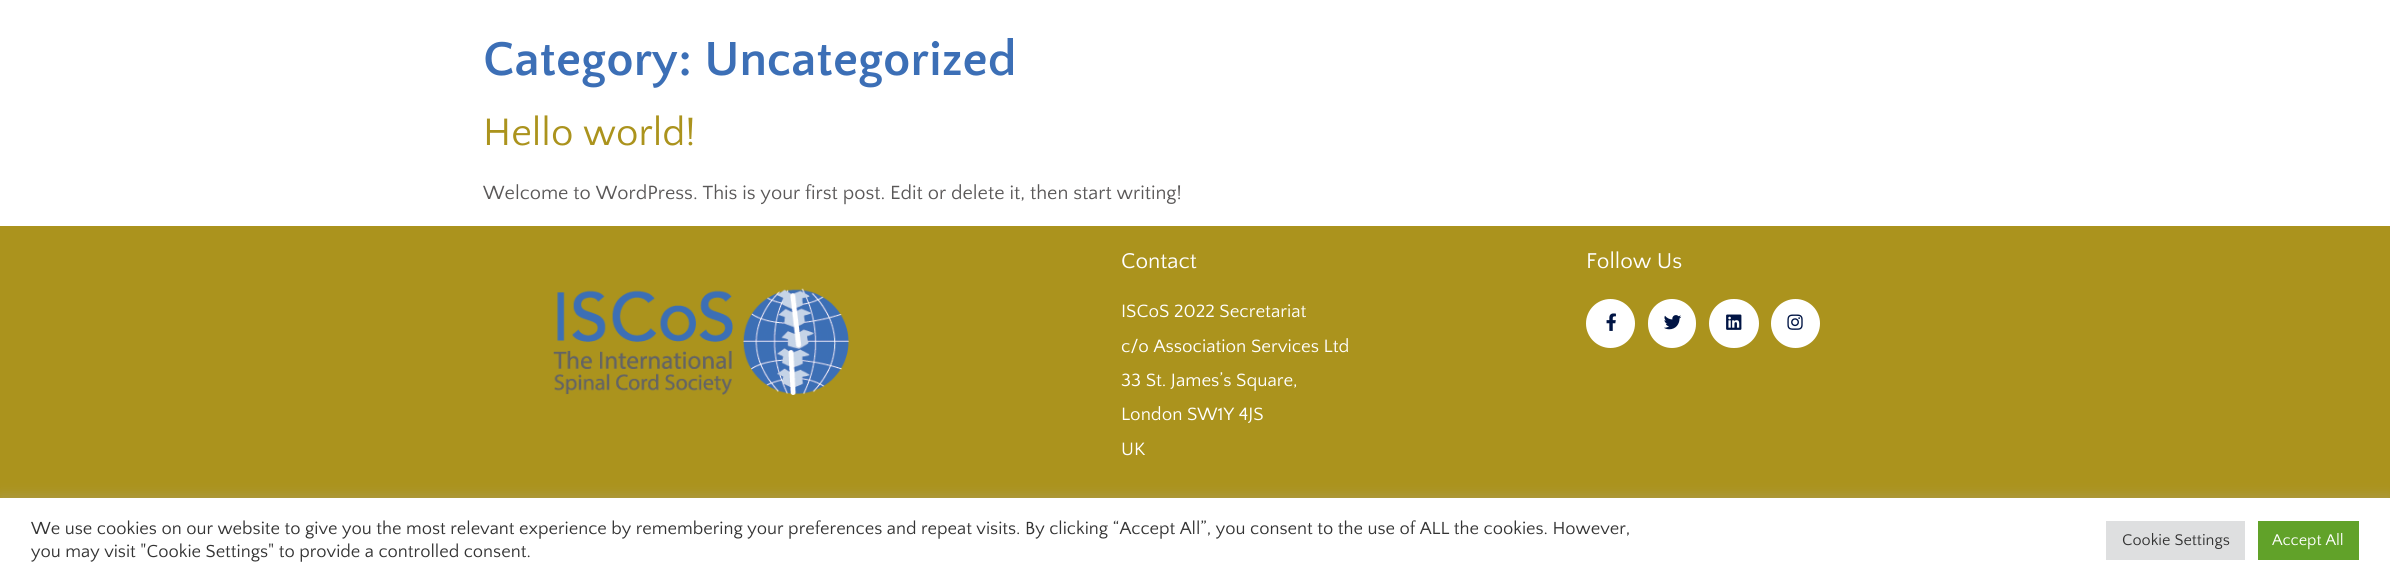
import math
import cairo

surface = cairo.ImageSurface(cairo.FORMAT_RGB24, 2390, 583)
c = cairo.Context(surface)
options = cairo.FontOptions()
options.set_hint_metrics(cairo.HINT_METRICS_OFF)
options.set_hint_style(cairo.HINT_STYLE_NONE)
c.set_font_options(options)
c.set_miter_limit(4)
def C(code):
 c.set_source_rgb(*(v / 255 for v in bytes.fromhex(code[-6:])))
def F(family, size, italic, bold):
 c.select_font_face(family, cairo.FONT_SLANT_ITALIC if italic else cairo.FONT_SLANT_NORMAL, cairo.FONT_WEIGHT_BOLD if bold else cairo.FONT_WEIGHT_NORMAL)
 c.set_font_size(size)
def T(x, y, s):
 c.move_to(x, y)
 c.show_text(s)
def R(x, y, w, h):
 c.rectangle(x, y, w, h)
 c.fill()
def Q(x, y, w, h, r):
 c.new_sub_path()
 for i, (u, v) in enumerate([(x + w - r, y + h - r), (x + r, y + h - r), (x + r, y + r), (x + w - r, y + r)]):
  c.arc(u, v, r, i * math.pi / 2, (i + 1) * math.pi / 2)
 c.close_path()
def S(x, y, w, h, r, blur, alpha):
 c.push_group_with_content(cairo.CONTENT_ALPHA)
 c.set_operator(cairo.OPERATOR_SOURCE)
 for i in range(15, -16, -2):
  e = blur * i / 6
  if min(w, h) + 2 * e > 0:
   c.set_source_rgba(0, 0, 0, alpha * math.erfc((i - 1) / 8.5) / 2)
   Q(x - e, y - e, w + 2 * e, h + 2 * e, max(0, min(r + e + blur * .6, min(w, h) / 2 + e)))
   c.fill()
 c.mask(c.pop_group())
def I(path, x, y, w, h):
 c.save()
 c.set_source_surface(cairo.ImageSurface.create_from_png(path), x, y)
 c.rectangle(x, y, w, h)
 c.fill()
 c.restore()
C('ffffff')
c.paint()
F('Quattrocento Sans',50,0,1)
C('3c6fb6')
T(483,75,'Category: Uncategorized')
F('Quattrocento Sans',40,0,0)
C('ab931d')
T(483,145,'Hello world!')
F('Quattrocento Sans',20,0,0)
C('5a5858')
T(483,199,'Welcome to WordPress. This is your first post. Edit or delete it, then start writing!')
C('ab931d')
R(0,226,2390,272)
I('1.png',553,288,296,107)
F('Quattrocento Sans',22.5,0,0)
C('ffffff')
T(1121,268,'Contact')
F('Quattrocento Sans',18.75,0,0)
T(1121,317,'ISCoS 2022 Secretariat')
T(1121,352,'c/o Association Services Ltd')
T(1121,386,'33 St. James’s Square,')
T(1121,420,'London SW1Y 4JS')
T(1121,455,'UK')
F('Quattrocento Sans',22.5,0,0)
T(1586,268,'Follow Us')
c.new_path()
c.arc(1610.5,323.5,24.5,0,2 * math.pi)
c.fill()
I('2.png',1606,313,10,18)
Q(1648,299,48,49,24)
c.fill()
I('3.png',1664,315,18,15)
Q(1709,299,50,49,24.5)
c.fill()
I('4.png',1726,314,16,16)
c.arc(1795.5,323.5,24.5,0,2 * math.pi)
c.fill()
I('5.png',1787,314,16,16)
C('acabab')
S(0,496,2390,87,0,6,.3)
C('ffffff')
R(0,498,2390,85)
F('Quattrocento Sans',18.33,0,0)
C('333333')
T(31,534,'We use cookies on our website to give you the most relevant experience by remembering your preferences and repeat visits. By clicking “Accept All”, you consent to the use of ALL the cookies. However,')
T(31,557,'you may visit "Cookie Settings" to provide a controlled consent.')
C('dedfe0')
R(2106,521,139,39)
F('Quattrocento Sans',16.25,0,0)
C('333333')
T(2122,545,'Cookie Settings')
C('61a229')
R(2258,521,101,39)
C('ffffff')
T(2272,545,'Accept All')
surface.write_to_png('o.png')
